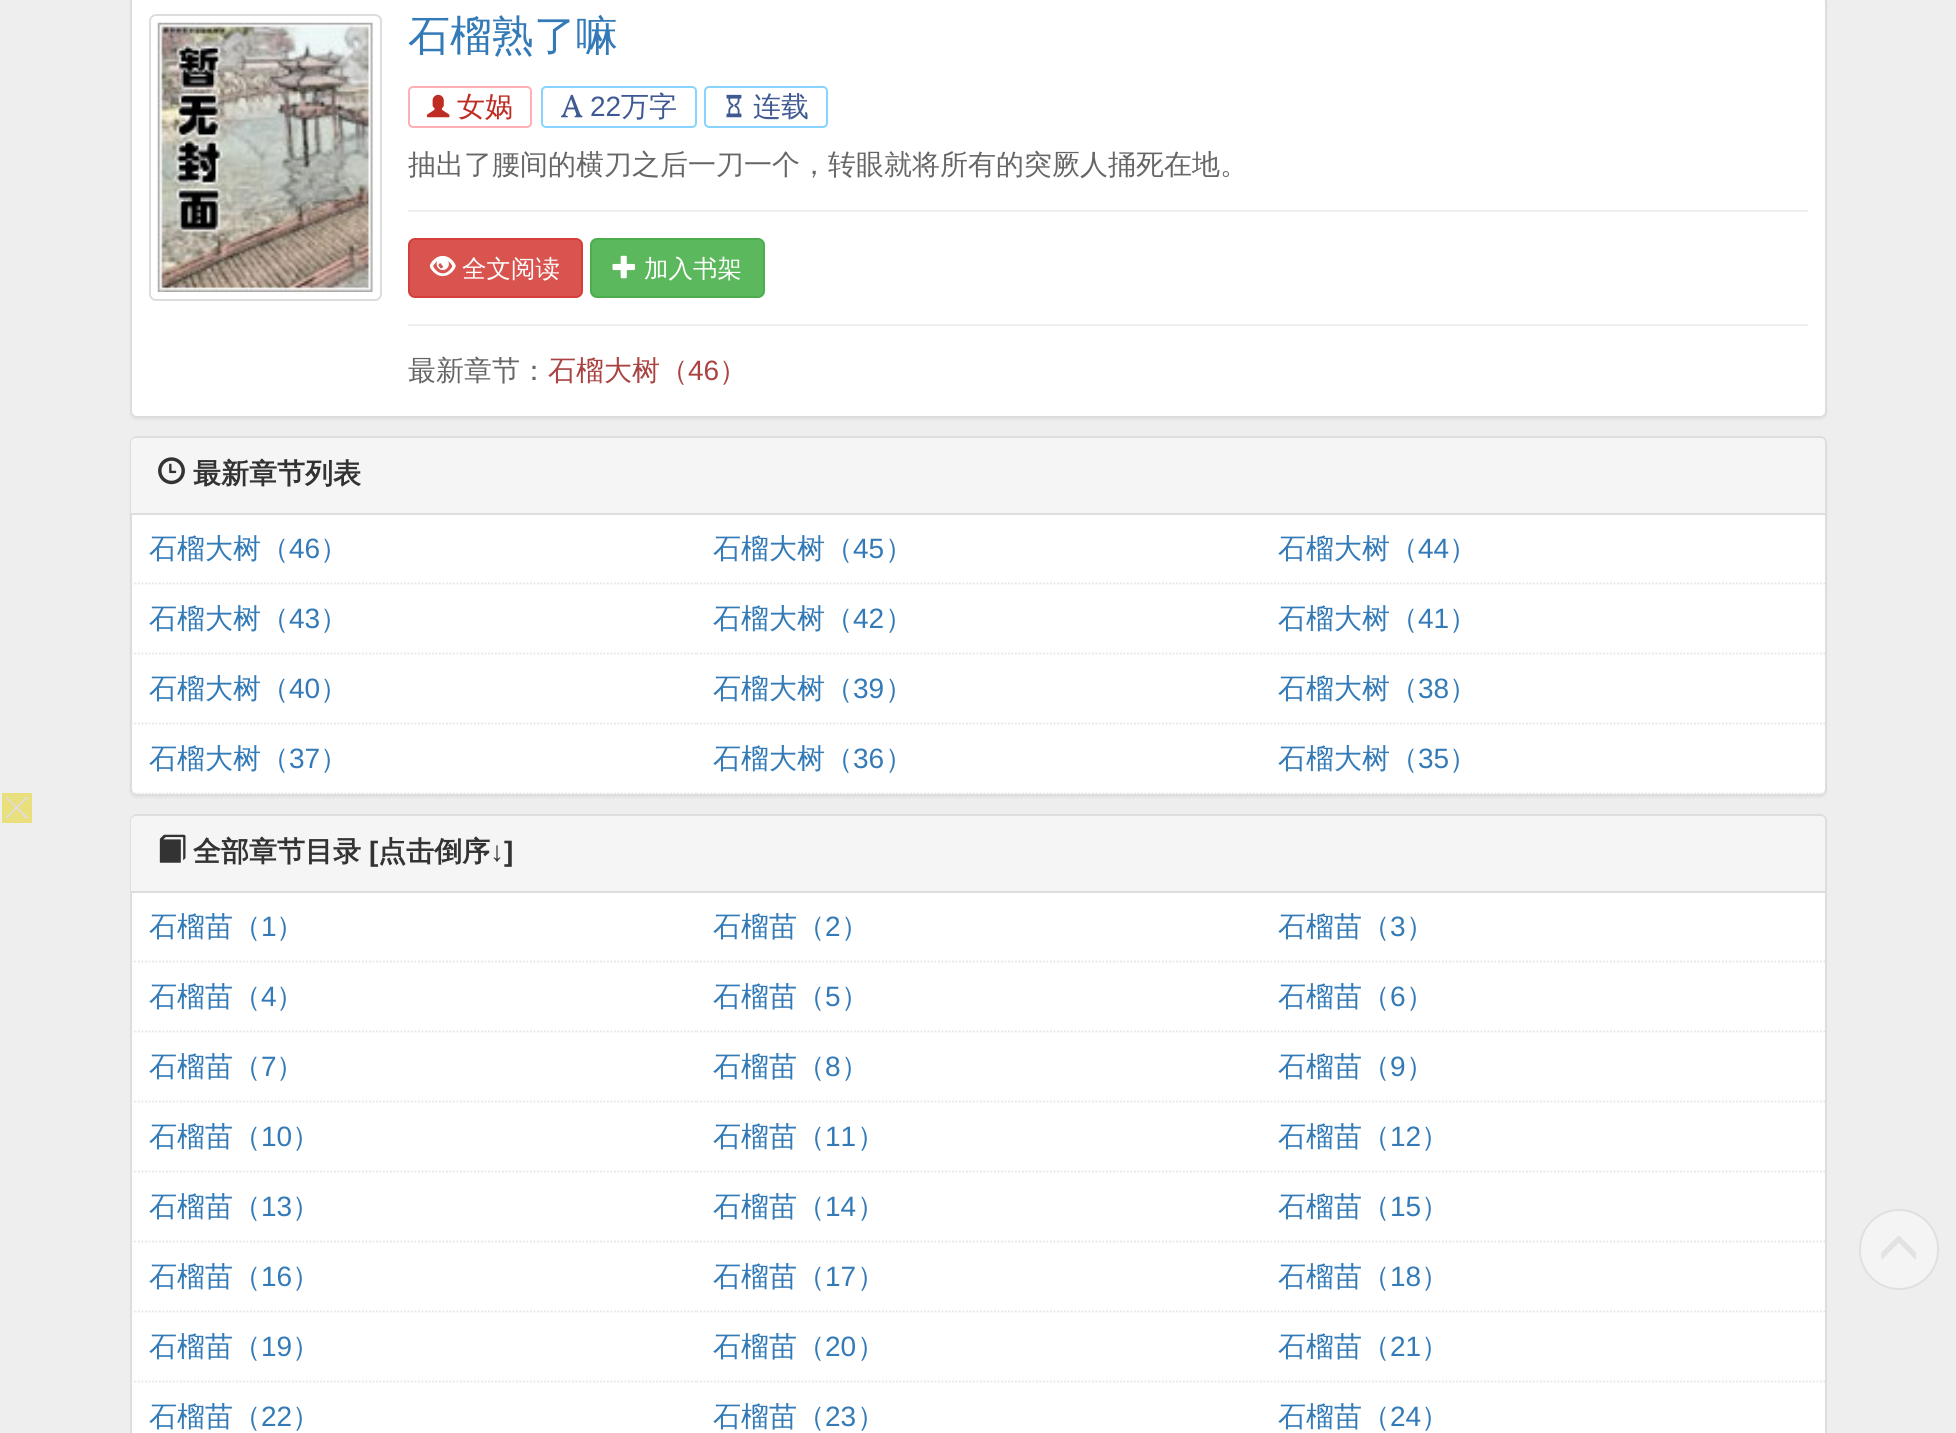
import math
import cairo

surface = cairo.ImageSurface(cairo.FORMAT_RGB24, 1956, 1433)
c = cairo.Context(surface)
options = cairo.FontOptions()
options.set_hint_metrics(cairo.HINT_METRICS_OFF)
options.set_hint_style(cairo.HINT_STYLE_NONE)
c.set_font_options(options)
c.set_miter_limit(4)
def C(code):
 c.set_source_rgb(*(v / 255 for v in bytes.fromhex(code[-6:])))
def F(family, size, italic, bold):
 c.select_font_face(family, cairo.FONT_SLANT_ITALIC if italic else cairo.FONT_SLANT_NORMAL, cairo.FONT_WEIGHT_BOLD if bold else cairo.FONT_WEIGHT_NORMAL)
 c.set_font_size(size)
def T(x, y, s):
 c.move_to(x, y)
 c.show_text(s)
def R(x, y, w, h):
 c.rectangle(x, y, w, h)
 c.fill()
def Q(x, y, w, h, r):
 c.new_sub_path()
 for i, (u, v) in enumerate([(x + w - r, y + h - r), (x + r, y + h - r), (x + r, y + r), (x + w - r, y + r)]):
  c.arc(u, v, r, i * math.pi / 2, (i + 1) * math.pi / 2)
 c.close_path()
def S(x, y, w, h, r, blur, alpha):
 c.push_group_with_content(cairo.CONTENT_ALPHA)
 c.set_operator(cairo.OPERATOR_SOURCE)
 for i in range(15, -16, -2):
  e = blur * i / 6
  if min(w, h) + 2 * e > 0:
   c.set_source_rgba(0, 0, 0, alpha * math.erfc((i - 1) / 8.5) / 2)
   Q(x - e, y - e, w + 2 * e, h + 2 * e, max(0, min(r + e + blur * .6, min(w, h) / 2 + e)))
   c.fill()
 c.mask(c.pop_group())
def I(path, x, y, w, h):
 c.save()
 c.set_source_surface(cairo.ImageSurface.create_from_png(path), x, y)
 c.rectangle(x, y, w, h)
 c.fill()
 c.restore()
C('eeeeee')
c.paint()
C('eadf7d')
R(2,793,30,30)
C('dddddd')
c.new_path()
c.move_to(6.5,796.5)
c.line_to(28,817.5)
c.line_to(26.5,819)
c.line_to(5.5,797.5)
c.close_path()
c.fill()
c.new_path()
c.move_to(5.5,817.5)
c.line_to(26.5,796.5)
c.line_to(28,797.5)
c.line_to(6.5,819)
c.close_path()
c.fill()
C('000000')
S(130,-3,1697,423,7,1,.05)
C('ffffff')
Q(131,-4,1695,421,6)
c.fill_preserve()
C('dddddd')
c.stroke()
Q(150,15,231,285,6)
c.stroke()
I('1.png',157,22,216,270)
F('WenQuanYi Zen Hei Medium',42,0,0)
C('337ab7')
T(408,50,'石榴熟了嘛')
Q(409,87,122,40,4)
C('ffb0b4')
c.stroke()
I('2.png',427,94,23,24)
F('WenQuanYi Zen Hei Medium',28,0,0)
C('bf2c24')
T(457,116,'女娲')
Q(542,87,154,40,4)
C('89d4ff')
c.stroke()
I('3.png',561,94,22,24)
F('Liberation Sans',28,0,0)
C('3f5a93')
T(590,116,'22')
F('WenQuanYi Zen Hei Medium',28,0,0)
T(621,116,'万字')
Q(705,87,122,40,4)
C('89d4ff')
c.stroke()
I('4.png',726,94,16,24)
C('3f5a93')
T(753,116,'连载')
C('666666')
T(408,174,'抽出了腰间的横刀之后一刀一个，转眼就将所有的突厥人捅死在地。')
C('eeeeee')
R(408,210,1400,2)
C('d9534f')
Q(409,239,173,58,6)
c.fill_preserve()
C('d43f3a')
c.stroke()
I('5.png',429,255,27,22)
F('WenQuanYi Zen Hei Medium',24.5,0,0)
C('ffffff')
T(462,277,'全文阅读')
C('5cb85c')
Q(591,239,173,58,6)
c.fill_preserve()
C('4cae4c')
c.stroke()
I('6.png',612,255,23,24)
C('ffffff')
T(644,277,'加入书架')
C('eeeeee')
R(408,324,1400,2)
F('WenQuanYi Zen Hei Medium',28,0,0)
C('666666')
T(408,380,'最新章节：')
C('a94442')
T(548,380,'石榴大树（')
F('Liberation Sans',28,0,0)
T(688,380,'46')
F('WenQuanYi Zen Hei Medium',28,0,0)
T(719,380,'）')
C('000000')
S(130,438,1697,360,7,1,.05)
C('ffffff')
Q(131,437,1695,358,6)
c.fill_preserve()
C('dddddd')
c.stroke()
C('f5f5f5')
c.new_path()
c.move_to(136,438)
c.line_to(1820,438)
c.curve_to(1823,438,1825,440,1825,443)
c.line_to(1825,515)
c.line_to(131,515)
c.line_to(131,443)
c.curve_to(131,440,133,438,136,438)
c.close_path()
c.fill()
C('dddddd')
R(131,513,1694,2)
I('7.png',158,457,27,28)
F('WenQuanYi Zen Hei',28,0,1)
C('333333')
T(193,483,'最新章节列表')
c.new_path()
c.move_to(131,583.5)
c.line_to(696.5,583.5)
C('e5e5e5')
c.set_line_width(1.8)
c.set_dash([1.75,1.75])
c.stroke()
F('WenQuanYi Zen Hei Medium',28,0,0)
C('337ab7')
T(149,558,'石榴大树（')
F('Liberation Sans',28,0,0)
T(289,558,'46')
F('WenQuanYi Zen Hei Medium',28,0,0)
T(320,558,'）')
c.new_path()
c.move_to(696.5,583.5)
c.line_to(1260,583.5)
C('e5e5e5')
c.stroke()
C('337ab7')
T(713,558,'石榴大树（')
F('Liberation Sans',28,0,0)
T(853,558,'45')
F('WenQuanYi Zen Hei Medium',28,0,0)
T(885,558,'）')
c.new_path()
c.move_to(1260,583.5)
c.line_to(1825,583.5)
C('e5e5e5')
c.stroke()
C('337ab7')
T(1278,558,'石榴大树（')
F('Liberation Sans',28,0,0)
T(1418,558,'44')
F('WenQuanYi Zen Hei Medium',28,0,0)
T(1449,558,'）')
c.new_path()
c.move_to(131,653.5)
c.line_to(696.5,653.5)
C('e5e5e5')
c.stroke()
C('337ab7')
T(149,628,'石榴大树（')
F('Liberation Sans',28,0,0)
T(289,628,'43')
F('WenQuanYi Zen Hei Medium',28,0,0)
T(320,628,'）')
c.new_path()
c.move_to(696.5,653.5)
c.line_to(1260,653.5)
C('e5e5e5')
c.stroke()
C('337ab7')
T(713,628,'石榴大树（')
F('Liberation Sans',28,0,0)
T(853,628,'42')
F('WenQuanYi Zen Hei Medium',28,0,0)
T(885,628,'）')
c.new_path()
c.move_to(1260,653.5)
c.line_to(1825,653.5)
C('e5e5e5')
c.stroke()
C('337ab7')
T(1278,628,'石榴大树（')
F('Liberation Sans',28,0,0)
T(1418,628,'41')
F('WenQuanYi Zen Hei Medium',28,0,0)
T(1449,628,'）')
c.new_path()
c.move_to(131,723.5)
c.line_to(696.5,723.5)
C('e5e5e5')
c.stroke()
C('337ab7')
T(149,698,'石榴大树（')
F('Liberation Sans',28,0,0)
T(289,698,'40')
F('WenQuanYi Zen Hei Medium',28,0,0)
T(320,698,'）')
c.new_path()
c.move_to(696.5,723.5)
c.line_to(1260,723.5)
C('e5e5e5')
c.stroke()
C('337ab7')
T(713,698,'石榴大树（')
F('Liberation Sans',28,0,0)
T(853,698,'39')
F('WenQuanYi Zen Hei Medium',28,0,0)
T(885,698,'）')
c.new_path()
c.move_to(1260,723.5)
c.line_to(1825,723.5)
C('e5e5e5')
c.stroke()
C('337ab7')
T(1278,698,'石榴大树（')
F('Liberation Sans',28,0,0)
T(1418,698,'38')
F('WenQuanYi Zen Hei Medium',28,0,0)
T(1449,698,'）')
c.new_path()
c.move_to(131,793.5)
c.line_to(696.5,793.5)
C('e5e5e5')
c.stroke()
C('337ab7')
T(149,768,'石榴大树（')
F('Liberation Sans',28,0,0)
T(289,768,'37')
F('WenQuanYi Zen Hei Medium',28,0,0)
T(320,768,'）')
c.new_path()
c.move_to(696.5,793.5)
c.line_to(1260,793.5)
C('e5e5e5')
c.stroke()
C('337ab7')
T(713,768,'石榴大树（')
F('Liberation Sans',28,0,0)
T(853,768,'36')
F('WenQuanYi Zen Hei Medium',28,0,0)
T(885,768,'）')
c.new_path()
c.move_to(1260,793.5)
c.line_to(1825,793.5)
C('e5e5e5')
c.stroke()
C('337ab7')
T(1278,768,'石榴大树（')
F('Liberation Sans',28,0,0)
T(1418,768,'35')
F('WenQuanYi Zen Hei Medium',28,0,0)
T(1449,768,'）')
C('ffffff')
Q(131,815,1695,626,6)
c.fill_preserve()
C('dddddd')
c.set_line_width(2)
c.set_dash([])
c.stroke()
C('f5f5f5')
c.new_path()
c.move_to(136,816)
c.line_to(1820,816)
c.curve_to(1823,816,1825,818,1825,821)
c.line_to(1825,893)
c.line_to(131,893)
c.line_to(131,821)
c.curve_to(131,818,133,816,136,816)
c.close_path()
c.fill()
C('dddddd')
R(131,891,1694,2)
I('8.png',159,834,27,29)
F('WenQuanYi Zen Hei',28,0,1)
C('333333')
T(193,861,'全部章节目录')
F('Liberation Sans',28,0,1)
T(369,861,'[')
F('WenQuanYi Zen Hei',28,0,1)
T(378,861,'点击倒序')
F('Liberation Sans',28,0,1)
T(490,861,'↓]')
c.new_path()
c.move_to(131,961.5)
c.line_to(696.5,961.5)
C('e5e5e5')
c.set_line_width(1.8)
c.set_dash([1.75,1.75])
c.stroke()
F('WenQuanYi Zen Hei Medium',28,0,0)
C('337ab7')
T(149,936,'石榴苗（')
F('Liberation Sans',28,0,0)
T(261,936,'1')
F('WenQuanYi Zen Hei Medium',28,0,0)
T(276,936,'）')
c.new_path()
c.move_to(696.5,961.5)
c.line_to(1260,961.5)
C('e5e5e5')
c.stroke()
C('337ab7')
T(713,936,'石榴苗（')
F('Liberation Sans',28,0,0)
T(825,936,'2')
F('WenQuanYi Zen Hei Medium',28,0,0)
T(841,936,'）')
c.new_path()
c.move_to(1260,961.5)
c.line_to(1825,961.5)
C('e5e5e5')
c.stroke()
C('337ab7')
T(1278,936,'石榴苗（')
F('Liberation Sans',28,0,0)
T(1390,936,'3')
F('WenQuanYi Zen Hei Medium',28,0,0)
T(1406,936,'）')
c.new_path()
c.move_to(131,1031.5)
c.line_to(696.5,1031.5)
C('e5e5e5')
c.stroke()
C('337ab7')
T(149,1006,'石榴苗（')
F('Liberation Sans',28,0,0)
T(261,1006,'4')
F('WenQuanYi Zen Hei Medium',28,0,0)
T(276,1006,'）')
c.new_path()
c.move_to(696.5,1031.5)
c.line_to(1260,1031.5)
C('e5e5e5')
c.stroke()
C('337ab7')
T(713,1006,'石榴苗（')
F('Liberation Sans',28,0,0)
T(825,1006,'5')
F('WenQuanYi Zen Hei Medium',28,0,0)
T(841,1006,'）')
c.new_path()
c.move_to(1260,1031.5)
c.line_to(1825,1031.5)
C('e5e5e5')
c.stroke()
C('337ab7')
T(1278,1006,'石榴苗（')
F('Liberation Sans',28,0,0)
T(1390,1006,'6')
F('WenQuanYi Zen Hei Medium',28,0,0)
T(1406,1006,'）')
c.new_path()
c.move_to(131,1101.5)
c.line_to(696.5,1101.5)
C('e5e5e5')
c.stroke()
C('337ab7')
T(149,1076,'石榴苗（')
F('Liberation Sans',28,0,0)
T(261,1076,'7')
F('WenQuanYi Zen Hei Medium',28,0,0)
T(276,1076,'）')
c.new_path()
c.move_to(696.5,1101.5)
c.line_to(1260,1101.5)
C('e5e5e5')
c.stroke()
C('337ab7')
T(713,1076,'石榴苗（')
F('Liberation Sans',28,0,0)
T(825,1076,'8')
F('WenQuanYi Zen Hei Medium',28,0,0)
T(841,1076,'）')
c.new_path()
c.move_to(1260,1101.5)
c.line_to(1825,1101.5)
C('e5e5e5')
c.stroke()
C('337ab7')
T(1278,1076,'石榴苗（')
F('Liberation Sans',28,0,0)
T(1390,1076,'9')
F('WenQuanYi Zen Hei Medium',28,0,0)
T(1406,1076,'）')
c.new_path()
c.move_to(131,1171.5)
c.line_to(696.5,1171.5)
C('e5e5e5')
c.stroke()
C('337ab7')
T(149,1146,'石榴苗（')
F('Liberation Sans',28,0,0)
T(261,1146,'10')
F('WenQuanYi Zen Hei Medium',28,0,0)
T(292,1146,'）')
c.new_path()
c.move_to(696.5,1171.5)
c.line_to(1260,1171.5)
C('e5e5e5')
c.stroke()
C('337ab7')
T(713,1146,'石榴苗（')
F('Liberation Sans',28,0,0)
T(825,1146,'11')
F('WenQuanYi Zen Hei Medium',28,0,0)
T(857,1146,'）')
c.new_path()
c.move_to(1260,1171.5)
c.line_to(1825,1171.5)
C('e5e5e5')
c.stroke()
C('337ab7')
T(1278,1146,'石榴苗（')
F('Liberation Sans',28,0,0)
T(1390,1146,'12')
F('WenQuanYi Zen Hei Medium',28,0,0)
T(1421,1146,'）')
c.new_path()
c.move_to(131,1241.5)
c.line_to(696.5,1241.5)
C('e5e5e5')
c.stroke()
C('337ab7')
T(149,1216,'石榴苗（')
F('Liberation Sans',28,0,0)
T(261,1216,'13')
F('WenQuanYi Zen Hei Medium',28,0,0)
T(292,1216,'）')
c.new_path()
c.move_to(696.5,1241.5)
c.line_to(1260,1241.5)
C('e5e5e5')
c.stroke()
C('337ab7')
T(713,1216,'石榴苗（')
F('Liberation Sans',28,0,0)
T(825,1216,'14')
F('WenQuanYi Zen Hei Medium',28,0,0)
T(857,1216,'）')
c.new_path()
c.move_to(1260,1241.5)
c.line_to(1825,1241.5)
C('e5e5e5')
c.stroke()
C('337ab7')
T(1278,1216,'石榴苗（')
F('Liberation Sans',28,0,0)
T(1390,1216,'15')
F('WenQuanYi Zen Hei Medium',28,0,0)
T(1421,1216,'）')
c.new_path()
c.move_to(131,1311.5)
c.line_to(696.5,1311.5)
C('e5e5e5')
c.stroke()
C('337ab7')
T(149,1286,'石榴苗（')
F('Liberation Sans',28,0,0)
T(261,1286,'16')
F('WenQuanYi Zen Hei Medium',28,0,0)
T(292,1286,'）')
c.new_path()
c.move_to(696.5,1311.5)
c.line_to(1260,1311.5)
C('e5e5e5')
c.stroke()
C('337ab7')
T(713,1286,'石榴苗（')
F('Liberation Sans',28,0,0)
T(825,1286,'17')
F('WenQuanYi Zen Hei Medium',28,0,0)
T(857,1286,'）')
c.new_path()
c.move_to(1260,1311.5)
c.line_to(1825,1311.5)
C('e5e5e5')
c.stroke()
C('337ab7')
T(1278,1286,'石榴苗（')
F('Liberation Sans',28,0,0)
T(1390,1286,'18')
F('WenQuanYi Zen Hei Medium',28,0,0)
T(1421,1286,'）')
c.new_path()
c.move_to(131,1381.5)
c.line_to(696.5,1381.5)
C('e5e5e5')
c.stroke()
C('337ab7')
T(149,1356,'石榴苗（')
F('Liberation Sans',28,0,0)
T(261,1356,'19')
F('WenQuanYi Zen Hei Medium',28,0,0)
T(292,1356,'）')
c.new_path()
c.move_to(696.5,1381.5)
c.line_to(1260,1381.5)
C('e5e5e5')
c.stroke()
C('337ab7')
T(713,1356,'石榴苗（')
F('Liberation Sans',28,0,0)
T(825,1356,'20')
F('WenQuanYi Zen Hei Medium',28,0,0)
T(857,1356,'）')
c.new_path()
c.move_to(1260,1381.5)
c.line_to(1825,1381.5)
C('e5e5e5')
c.stroke()
C('337ab7')
T(1278,1356,'石榴苗（')
F('Liberation Sans',28,0,0)
T(1390,1356,'21')
F('WenQuanYi Zen Hei Medium',28,0,0)
T(1421,1356,'）')
T(149,1426,'石榴苗（')
F('Liberation Sans',28,0,0)
T(261,1426,'22')
F('WenQuanYi Zen Hei Medium',28,0,0)
T(292,1426,'）')
T(713,1426,'石榴苗（')
F('Liberation Sans',28,0,0)
T(825,1426,'23')
F('WenQuanYi Zen Hei Medium',28,0,0)
T(857,1426,'）')
T(1278,1426,'石榴苗（')
F('Liberation Sans',28,0,0)
T(1390,1426,'24')
F('WenQuanYi Zen Hei Medium',28,0,0)
T(1421,1426,'）')
C('f4f4f4')
Q(1860,1210,78,79,39)
c.fill_preserve()
C('e0e0e0')
c.set_line_width(2)
c.set_dash([])
c.stroke()
I('9.png',1881,1235,35,25)
surface.write_to_png('o.png')
